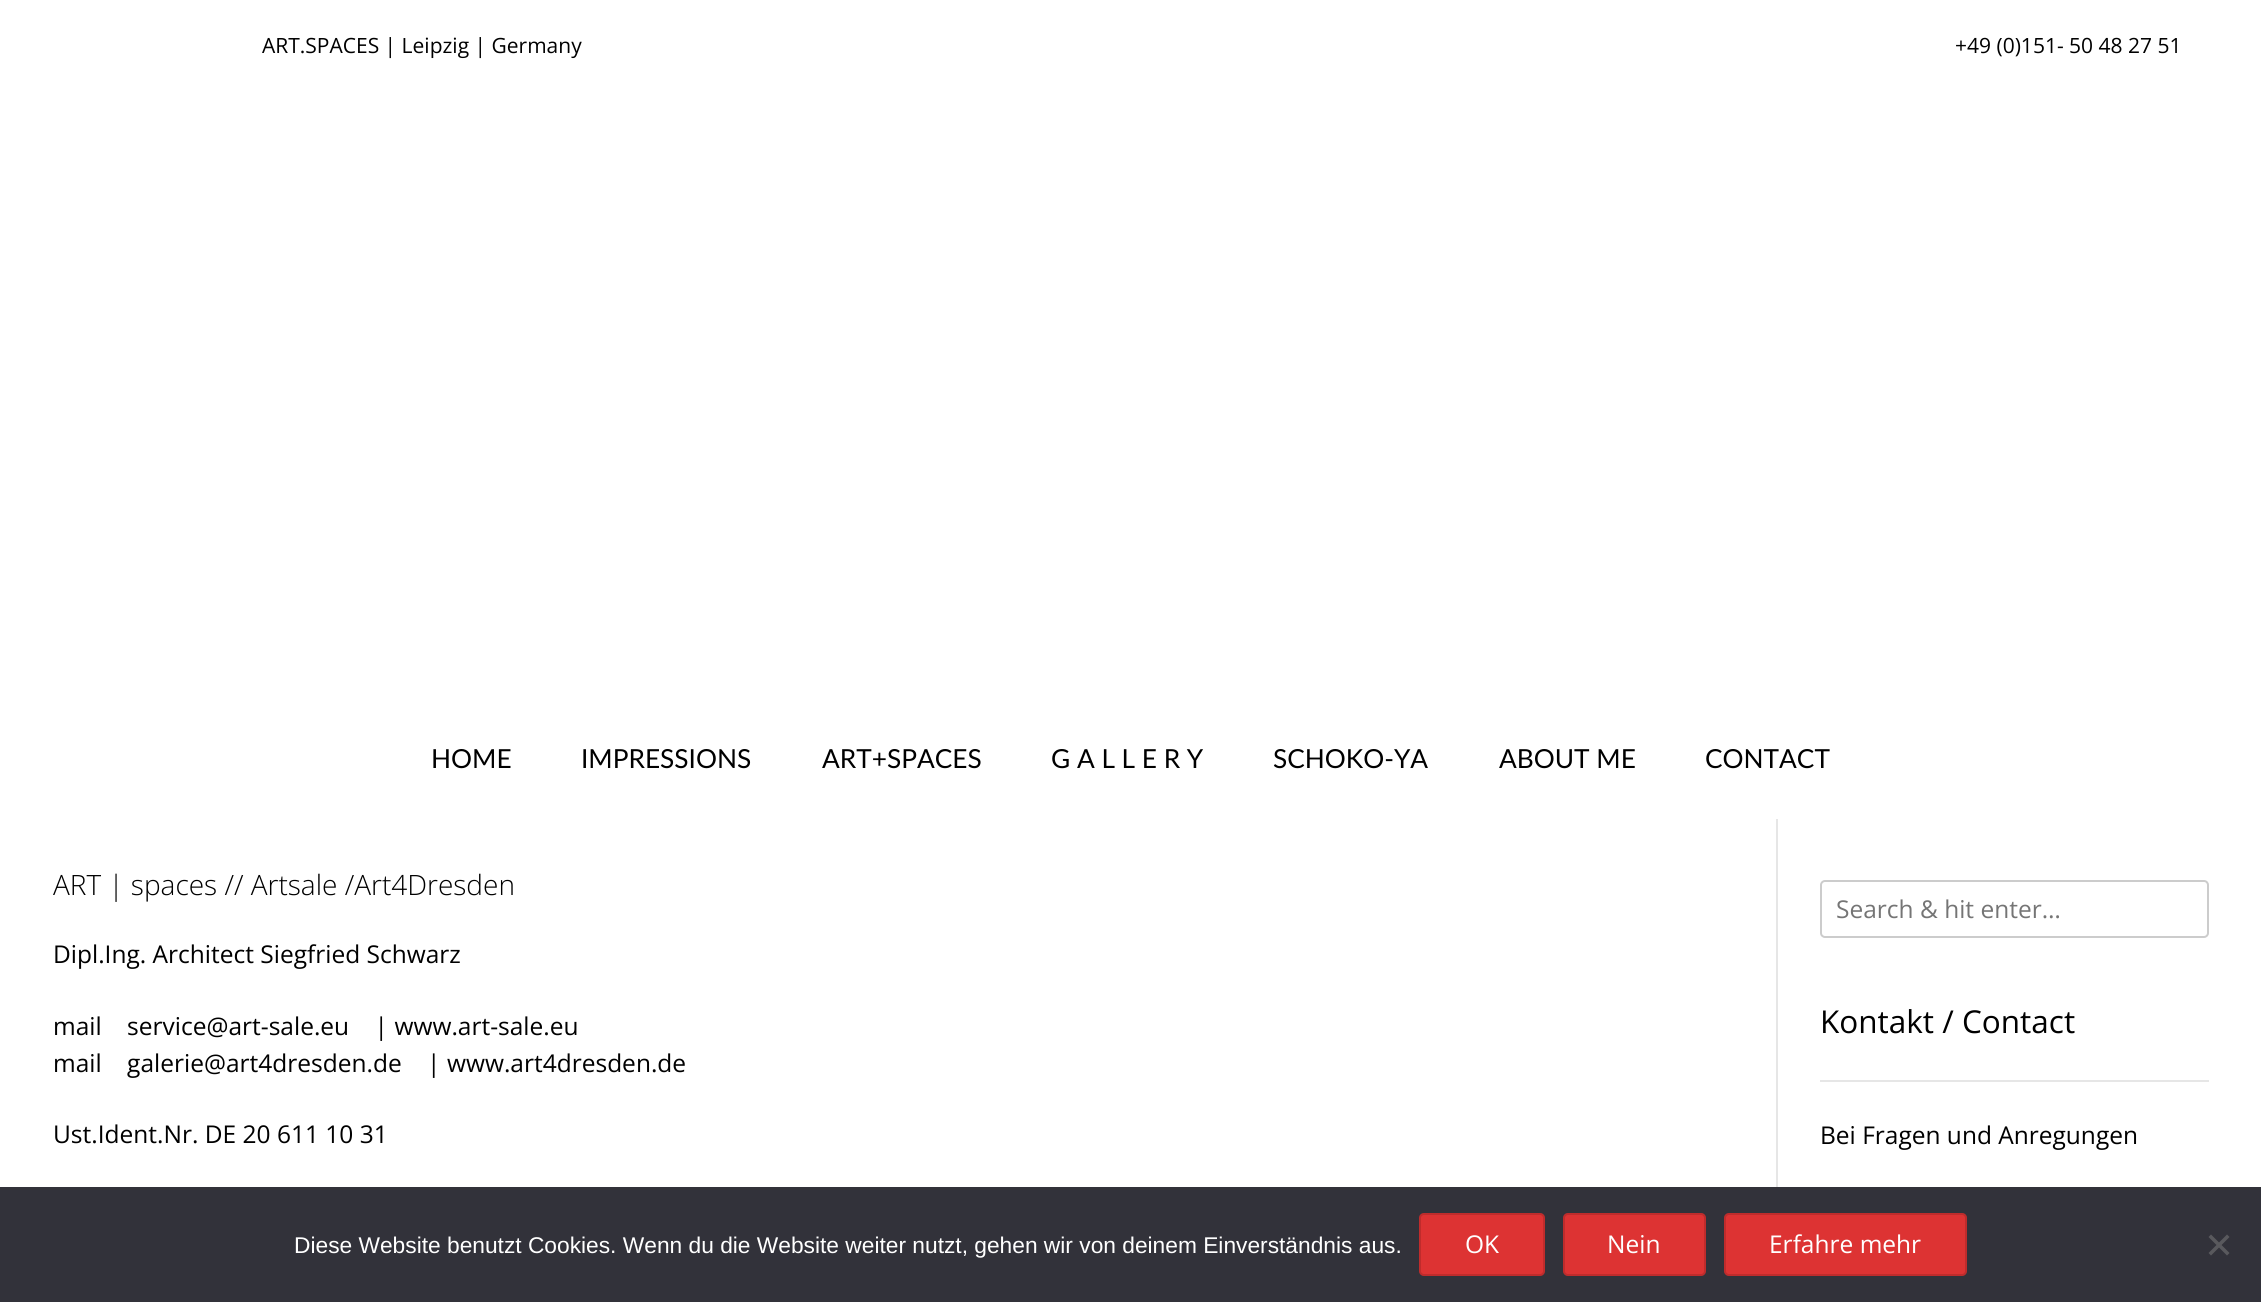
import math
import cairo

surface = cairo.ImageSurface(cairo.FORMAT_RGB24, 2261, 1302)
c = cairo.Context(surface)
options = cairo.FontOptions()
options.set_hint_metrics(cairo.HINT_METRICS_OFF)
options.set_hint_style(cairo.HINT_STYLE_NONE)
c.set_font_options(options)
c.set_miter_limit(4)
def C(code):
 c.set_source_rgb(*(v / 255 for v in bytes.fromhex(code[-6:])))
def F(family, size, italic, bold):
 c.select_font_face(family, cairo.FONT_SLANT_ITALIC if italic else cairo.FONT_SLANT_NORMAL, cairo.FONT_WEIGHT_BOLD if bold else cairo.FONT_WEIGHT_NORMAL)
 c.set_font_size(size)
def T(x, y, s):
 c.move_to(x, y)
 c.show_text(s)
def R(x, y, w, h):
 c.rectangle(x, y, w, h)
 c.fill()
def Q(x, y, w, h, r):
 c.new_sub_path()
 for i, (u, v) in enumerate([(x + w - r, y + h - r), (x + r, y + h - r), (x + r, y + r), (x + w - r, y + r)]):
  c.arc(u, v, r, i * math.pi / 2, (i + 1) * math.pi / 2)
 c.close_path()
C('ffffff')
c.paint()
F('Open Sans',21,0,0)
C('000000')
T(262,53,'ART.SPACES | Leipzig | Germany')
T(1955,53,'+49 (0)151- 50 48 27 51')
F('Lato',26.25,0,0)
T(431,768,'HOME')
T(581,768,'IMPRESSIONS')
T(822,768,'ART+SPACES')
T(1051,768,'G A L L E R Y')
T(1273,768,'SCHOKO-YA')
T(1499,768,'ABOUT ME')
T(1705,768,'CONTACT')
C('e6e6e6')
R(1776,819,2,368)
F('Open Sans Light',28,0,0)
C('000000')
T(53,895,'ART | spaces // Artsale /Art4Dresden')
F('Open Sans',24.5,0,0)
T(53,963,'Dipl.Ing. Architect Siegfried Schwarz')
T(53,1035,'mail    service@art-sale.eu    | www.art-sale.eu')
T(53,1072,'mail    galerie@art4dresden.de    | www.art4dresden.de')
T(53,1143,'Ust.Ident.Nr. DE 20 611 10 31')
Q(1821,881,387,56,4)
C('cccccc')
c.stroke()
C('757575')
T(1836,918,'Search & hit enter…')
C('e6e6e6')
R(1820,1080,389,2)
F('Open Sans',31.5,0,0)
C('000000')
T(1820,1033,'Kontakt / Contact')
F('Open Sans',24.5,0,0)
T(1820,1144,'Bei Fragen und Anregungen')
C('32323a')
R(0,1187,2261,115)
F('Liberation Sans',22.75,0,0)
C('ffffff')
T(294,1253,'Diese Website benutzt Cookies. Wenn du die Website weiter nutzt, gehen wir von deinem Einverständnis aus.')
C('dd3333')
Q(1419,1213,126,63,5)
c.fill()
Q(1420,1214,124,61,4)
c.set_source_rgba(0,0,0,0.14)
c.stroke()
F('Open Sans',24.5,0,0)
C('ffffff')
T(1465,1253,'OK')
C('dd3333')
Q(1563,1213,143,63,5)
c.fill()
Q(1564,1214,141,61,4)
c.set_source_rgba(0,0,0,0.14)
c.stroke()
C('ffffff')
T(1607,1253,'Nein')
C('dd3333')
Q(1724,1213,243,63,5)
c.fill()
Q(1725,1214,241,61,4)
c.set_source_rgba(0,0,0,0.14)
c.stroke()
C('ffffff')
T(1769,1253,'Erfahre mehr')
C('59595d')
c.new_path()
c.move_to(2227,1234.5)
c.line_to(2229.5,1237)
c.line_to(2211,1255.5)
c.line_to(2208.5,1253)
c.close_path()
c.fill()
c.new_path()
c.move_to(2208.5,1237)
c.line_to(2211,1234.5)
c.line_to(2229.5,1253)
c.line_to(2227,1255.5)
c.close_path()
c.fill()
surface.write_to_png('o.png')
